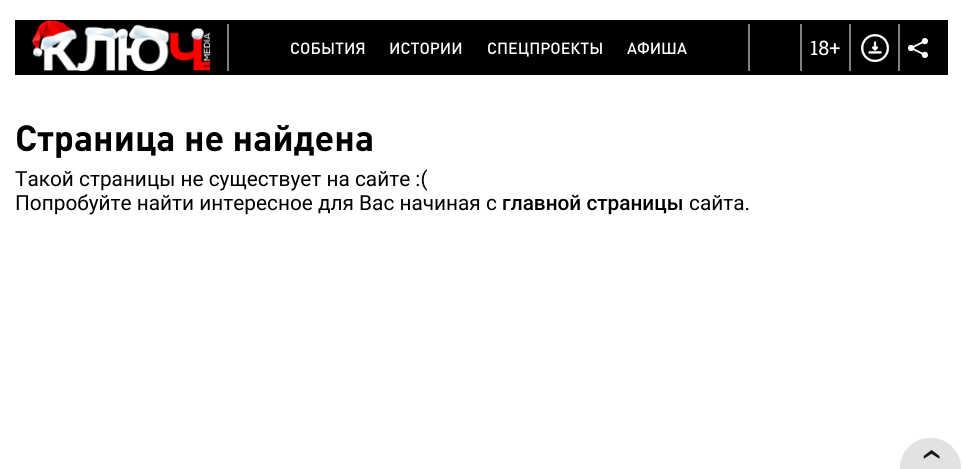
import math
import cairo

surface = cairo.ImageSurface(cairo.FORMAT_RGB24, 963, 469)
c = cairo.Context(surface)
options = cairo.FontOptions()
options.set_hint_metrics(cairo.HINT_METRICS_OFF)
options.set_hint_style(cairo.HINT_STYLE_NONE)
c.set_font_options(options)
c.set_miter_limit(4)
def C(code):
 c.set_source_rgb(*(v / 255 for v in bytes.fromhex(code[-6:])))
def F(family, size, italic, bold):
 c.select_font_face(family, cairo.FONT_SLANT_ITALIC if italic else cairo.FONT_SLANT_NORMAL, cairo.FONT_WEIGHT_BOLD if bold else cairo.FONT_WEIGHT_NORMAL)
 c.set_font_size(size)
def T(x, y, s):
 c.move_to(x, y)
 c.show_text(s)
def R(x, y, w, h):
 c.rectangle(x, y, w, h)
 c.fill()
def I(path, x, y, w, h):
 c.save()
 c.set_source_surface(cairo.ImageSurface.create_from_png(path), x, y)
 c.rectangle(x, y, w, h)
 c.fill()
 c.restore()
C('ffffff')
c.paint()
C('000000')
R(15,20,933,55)
C('808080')
R(227,24,2,47)
I('1.png',32,20,178,51)
F('DIN Medium',16,0,0)
C('ffffff')
T(290,54,'СОБЫТИЯ')
T(389,54,'ИСТОРИИ')
T(487,54,'СПЕЦПРОЕКТЫ')
T(627,54,'АФИША')
C('808080')
R(748,24,2,47)
R(800,24,2,47)
F('Roboto Slab',20,0,0)
C('ffffff')
T(810,55,'18+')
C('808080')
R(849,24,2,47)
I('2.png',861,34,28,28)
R(898,24,2,47)
I('3.png',908,38,20,20)
F('DIN',36,0,1)
C('000000')
T(15,151,'Страница не найдена')
F('Roboto',20.8,0,0)
T(15,186,'Такой страницы не существует на сайте :(')
T(15,210,'Попробуйте найти интересное для Вас начиная с')
F('Roboto Medium',20.8,0,0)
T(502,210,'главной страницы')
F('Roboto',20.8,0,0)
T(689,210,'сайта.')
I('4.png',900,438,61,31)
I('5.png',923,450,17,9)
surface.write_to_png('o.png')
